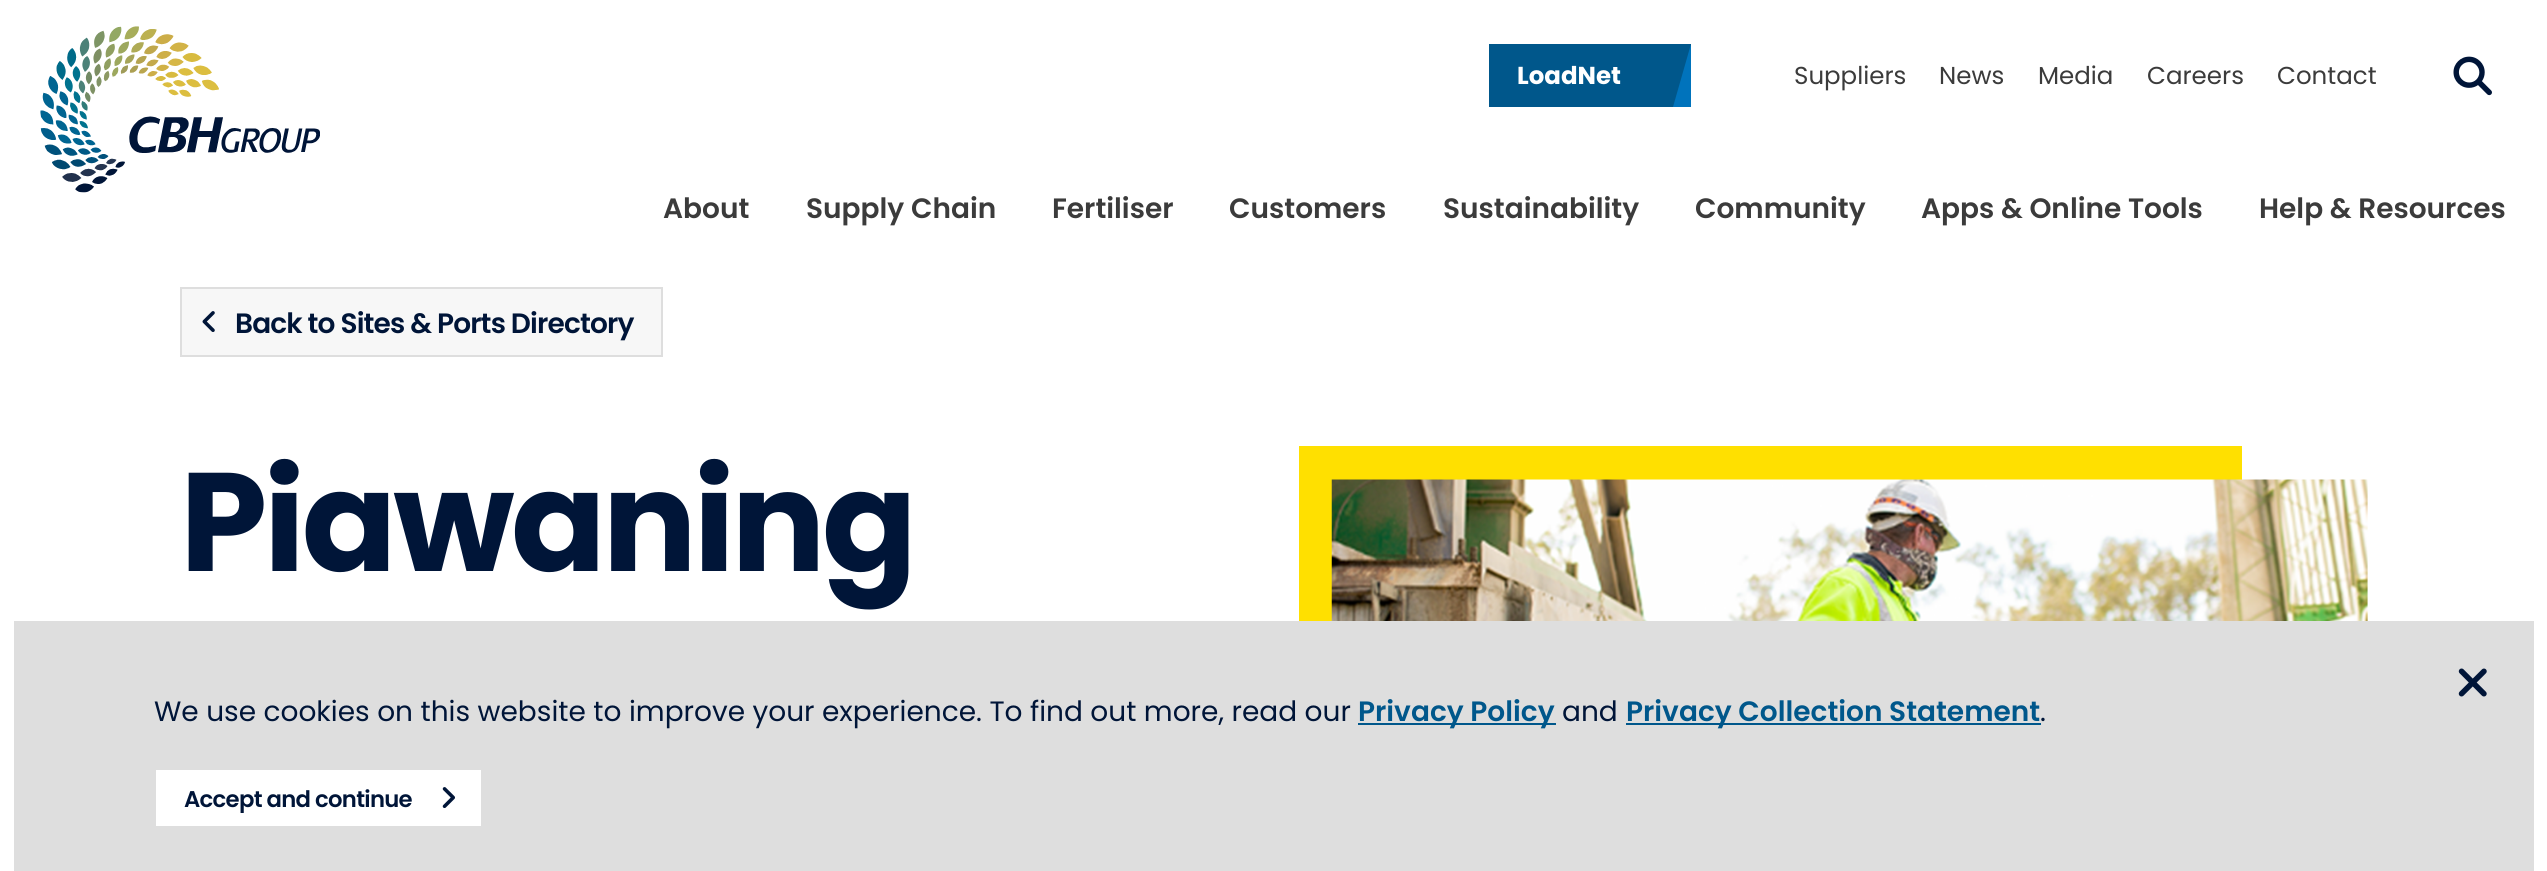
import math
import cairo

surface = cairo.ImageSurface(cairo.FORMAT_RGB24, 2547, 871)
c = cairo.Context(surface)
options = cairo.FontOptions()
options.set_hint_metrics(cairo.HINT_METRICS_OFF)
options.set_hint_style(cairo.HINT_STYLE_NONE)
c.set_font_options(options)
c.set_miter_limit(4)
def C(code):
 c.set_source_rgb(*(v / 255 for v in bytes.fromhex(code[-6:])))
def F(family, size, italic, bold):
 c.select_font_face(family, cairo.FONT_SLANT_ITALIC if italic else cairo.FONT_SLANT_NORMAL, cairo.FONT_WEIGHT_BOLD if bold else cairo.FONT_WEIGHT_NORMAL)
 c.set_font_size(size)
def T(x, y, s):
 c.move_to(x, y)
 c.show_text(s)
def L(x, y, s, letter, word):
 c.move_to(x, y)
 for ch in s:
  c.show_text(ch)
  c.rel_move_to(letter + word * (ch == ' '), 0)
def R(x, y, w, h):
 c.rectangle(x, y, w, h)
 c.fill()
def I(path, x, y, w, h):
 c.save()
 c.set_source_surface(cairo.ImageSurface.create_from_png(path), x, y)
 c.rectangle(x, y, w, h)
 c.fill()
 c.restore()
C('ffffff')
c.paint()
I('1.png',40,26,280,167)
C('00578b')
R(1489,44,202,63)
F('Poppins',24.5,0,1)
C('ffffff')
T(1517,84,'LoadNet')
c.save()
c.rectangle(1489,44,202,63)
c.clip()
C('0073bc')
c.new_path()
c.move_to(1752,44)
c.line_to(1752,107)
c.line_to(1673,107)
c.line_to(1691,44)
c.close_path()
c.fill()
c.restore()
F('Poppins',24.5,0,0)
C('3b3b3b')
T(1794,84,'Suppliers')
T(1939,84,'News')
T(2038,84,'Media')
T(2147,84,'Careers')
T(2277,84,'Contact')
I('2.png',2453,56,39,40)
F('Poppins SemiBold',28,0,0)
T(663,218,'About')
T(806,218,'Supply Chain')
T(1052,218,'Fertiliser')
T(1229,218,'Customers')
T(1443,218,'Sustainability')
T(1695,218,'Community')
T(1921,218,'Apps & Online Tools')
T(2259,218,'Help & Resources')
C('f7f7f7')
c.rectangle(181,288,481,68)
c.fill_preserve()
C('dedede')
c.stroke()
I('3.png',202,311,13,21)
C('001538')
L(235,333,'Back to Sites & Ports Directory',-.85,0)
F('Poppins',140,0,1)
L(180,571,'Piawaning',-3.5,0)
C('ffe000')
R(1299,446,943,175)
I('4.png',1331,479,1037,142)
C('dedede')
R(14,621,2520,250)
I('5.png',2458,668,29,29)
F('Poppins',28,0,0)
C('001538')
T(154,721,'We use cookies on this website to improve your experience. To find out more, read our')
C('00578b')
R(1358,723,198,2)
F('Poppins SemiBold',28,0,0)
T(1358,721,'Privacy Policy')
F('Poppins',28,0,0)
C('001538')
T(1562,721,'and')
C('00578b')
R(1626,723,415,2)
F('Poppins SemiBold',28,0,0)
T(1626,721,'Privacy Collection Statement')
F('Poppins',28,0,0)
C('001538')
T(2040,721,'.')
C('ffffff')
R(156,770,325,56)
F('Poppins SemiBold',22.75,0,0)
C('001538')
L(184,807,'Accept and continue',-.7,0)
I('6.png',442,787,13,21)
surface.write_to_png('o.png')
